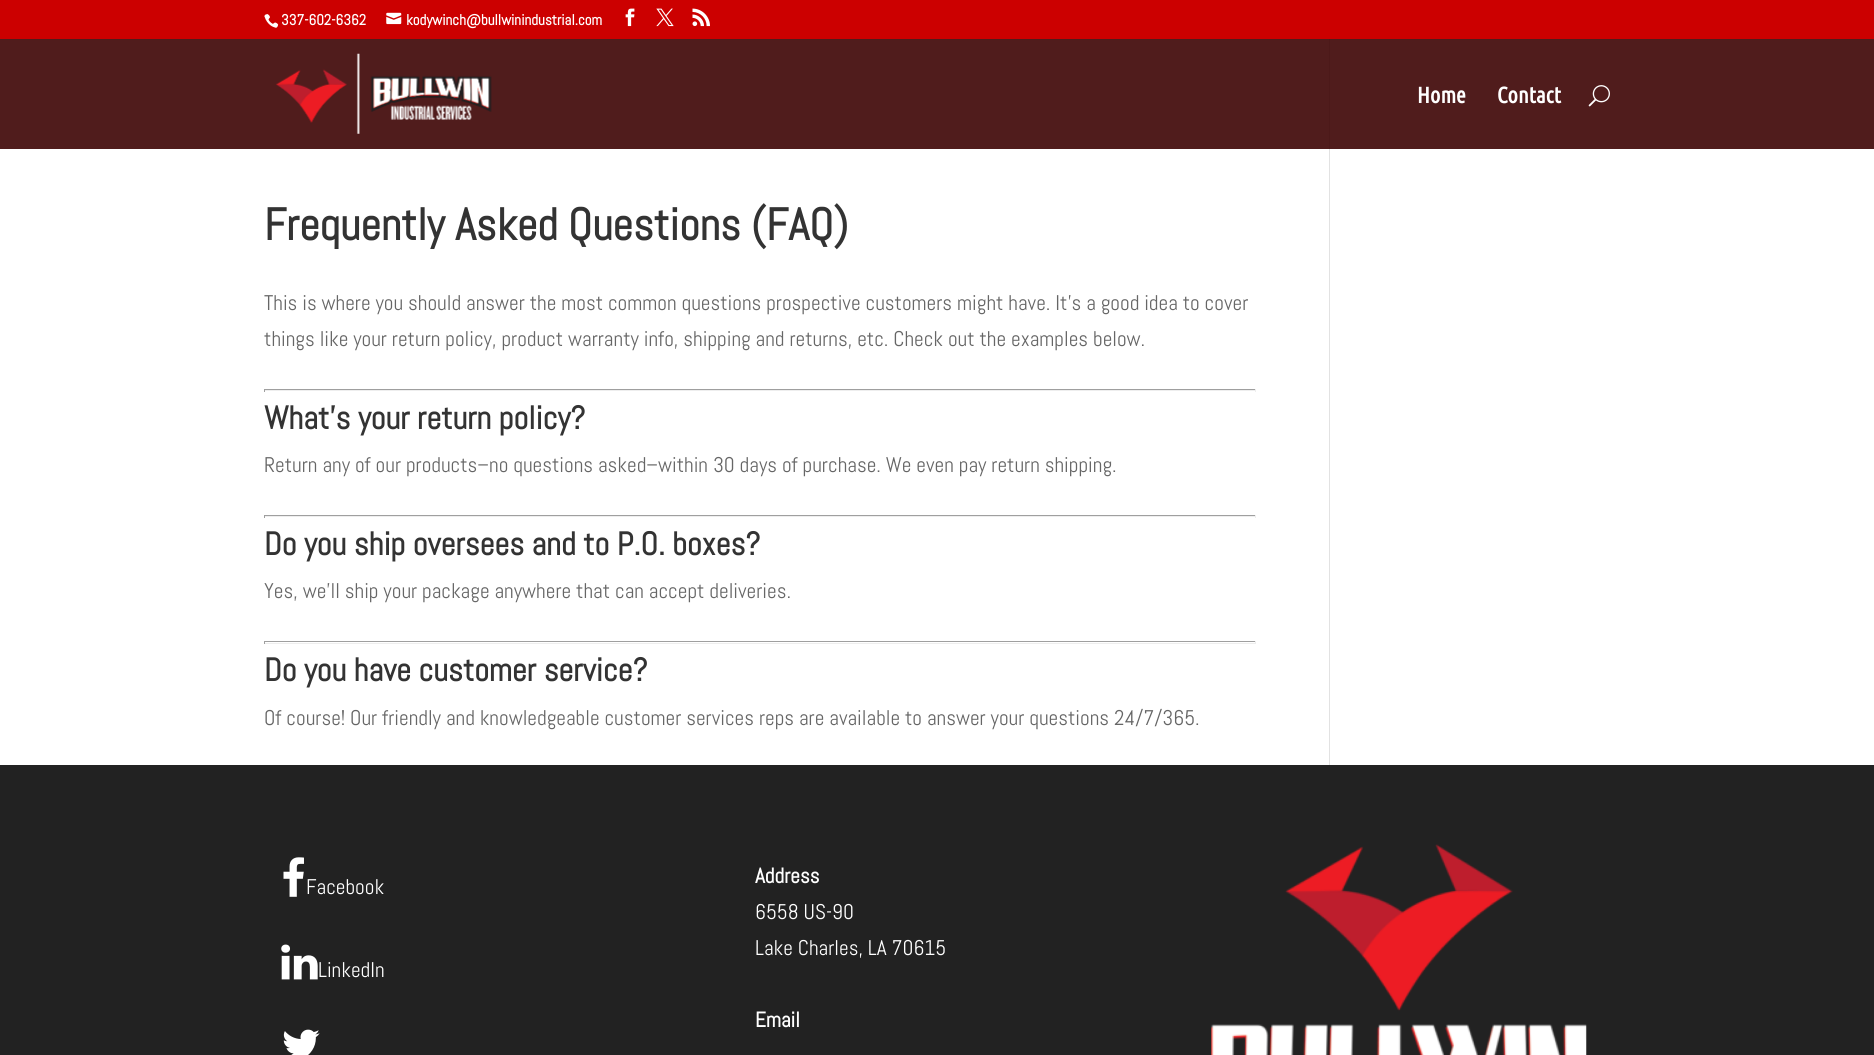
import math
import cairo

surface = cairo.ImageSurface(cairo.FORMAT_RGB24, 1874, 1055)
c = cairo.Context(surface)
options = cairo.FontOptions()
options.set_hint_metrics(cairo.HINT_METRICS_OFF)
options.set_hint_style(cairo.HINT_STYLE_NONE)
c.set_font_options(options)
c.set_miter_limit(4)
def C(code):
 c.set_source_rgb(*(v / 255 for v in bytes.fromhex(code[-6:])))
def F(family, size, italic, bold):
 c.select_font_face(family, cairo.FONT_SLANT_ITALIC if italic else cairo.FONT_SLANT_NORMAL, cairo.FONT_WEIGHT_BOLD if bold else cairo.FONT_WEIGHT_NORMAL)
 c.set_font_size(size)
def T(x, y, s):
 c.move_to(x, y)
 c.show_text(s)
def R(x, y, w, h):
 c.rectangle(x, y, w, h)
 c.fill()
def I(path, x, y, w, h):
 c.save()
 c.set_source_surface(cairo.ImageSurface.create_from_png(path), x, y)
 c.rectangle(x, y, w, h)
 c.fill()
 c.restore()
C('ffffff')
c.paint()
C('501c1c')
R(0,39,1874,110)
C('cc0000')
R(0,0,1874,39)
I('1.png',264,14,15,14)
F('Abel',15,0,1)
C('ffffff')
T(281,25,'337-602-6362')
I('2.png',386,12,16,13)
T(406,25,'kodywinch@bullwinindustrial.com')
I('3.png',625,8,10,19)
I('4.png',656,8,18,19)
I('5.png',692,8,18,19)
I('6.png',275,53,217,81)
F('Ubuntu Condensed',22.5,0,1)
T(1417,103,'Home')
T(1497,103,'Contact')
I('7.png',1588,85,22,22)
F('Abel',45,0,1)
C('333333')
T(264,240,'Frequently Asked Questions (FAQ)')
F('Abel',21.25,0,0)
C('666666')
T(264,310,'This is where you should answer the most common questions prospective customers might have. It’s a good idea to cover')
T(264,346,'things like your return policy, product warranty info, shipping and returns, etc. Check out the examples below.')
C('9f9f9f')
R(264,389,992,1)
C('eeeeee')
R(1255,389,1,3)
R(264,390,992,1)
C('9f9f9f')
R(264,389,1,3)
F('Abel',32.5,0,1)
C('333333')
T(264,429,'What’s your return policy?')
F('Abel',21.25,0,0)
C('666666')
T(264,472,'Return any of our products–no questions asked–within 30 days of purchase. We even pay return shipping.')
C('9f9f9f')
R(264,515,992,1)
C('eeeeee')
R(1255,515,1,3)
R(264,516,992,1)
C('9f9f9f')
R(264,515,1,3)
F('Abel',32.5,0,1)
C('333333')
T(264,555,'Do you ship oversees and to P.O. boxes?')
F('Abel',21.25,0,0)
C('666666')
T(264,598,'Yes, we’ll ship your package anywhere that can accept deliveries.')
C('9f9f9f')
R(264,641,992,1)
C('eeeeee')
R(1255,641,1,3)
R(264,643,992,1)
C('9f9f9f')
R(264,641,1,3)
F('Abel',32.5,0,1)
C('333333')
T(264,681,'Do you have customer service?')
F('Abel',21.25,0,0)
C('666666')
T(264,725,'Of course! Our friendly and knowledgeable customer services reps are available to answer your questions 24/7/365.')
C('e2e2e2')
R(1329,149,1,616)
C('4c1919')
R(1329,39,1,110)
C('222222')
R(0,765,1874,290)
I('8.png',283,857,21,40)
C('ffffff')
T(306,894,'Facebook')
I('9.png',281,944,37,36)
T(318,977,'LinkedIn')
I('10.png',283,1029,37,26)
F('Abel',21.25,0,1)
T(755,883,'Address')
F('Abel',21.25,0,0)
T(755,919,'6558 US-90')
T(755,955,'Lake Charles, LA 70615')
F('Abel',21.25,0,1)
T(755,1027,'Email')
I('11.png',1211,844,376,211)
surface.write_to_png('o.png')
